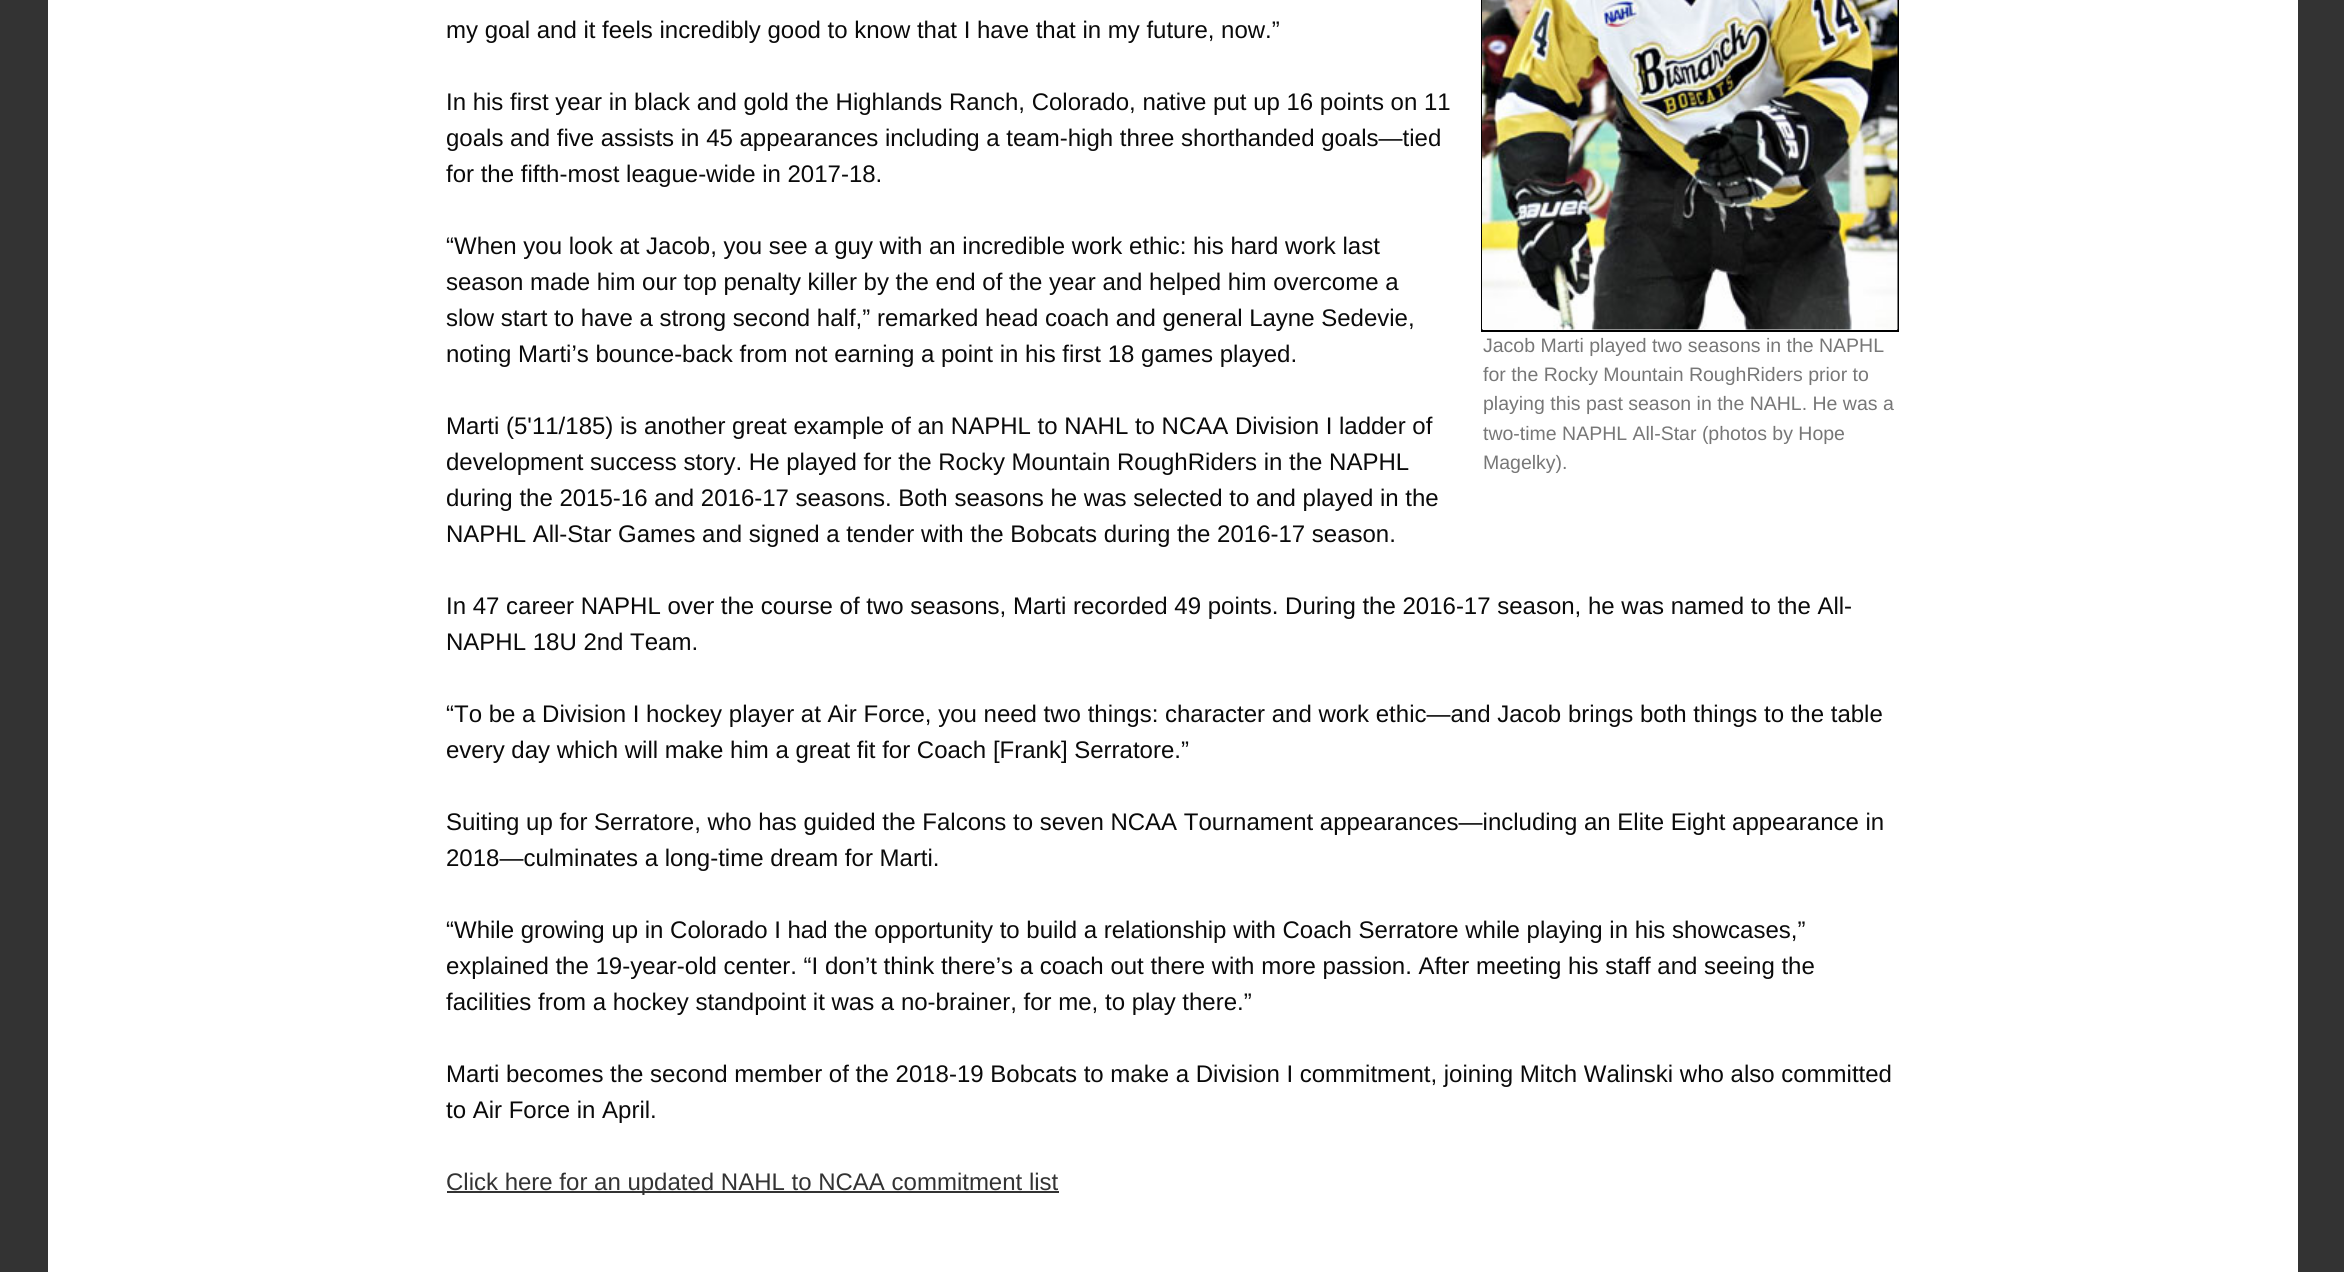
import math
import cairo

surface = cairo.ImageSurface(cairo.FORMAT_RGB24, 2344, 1272)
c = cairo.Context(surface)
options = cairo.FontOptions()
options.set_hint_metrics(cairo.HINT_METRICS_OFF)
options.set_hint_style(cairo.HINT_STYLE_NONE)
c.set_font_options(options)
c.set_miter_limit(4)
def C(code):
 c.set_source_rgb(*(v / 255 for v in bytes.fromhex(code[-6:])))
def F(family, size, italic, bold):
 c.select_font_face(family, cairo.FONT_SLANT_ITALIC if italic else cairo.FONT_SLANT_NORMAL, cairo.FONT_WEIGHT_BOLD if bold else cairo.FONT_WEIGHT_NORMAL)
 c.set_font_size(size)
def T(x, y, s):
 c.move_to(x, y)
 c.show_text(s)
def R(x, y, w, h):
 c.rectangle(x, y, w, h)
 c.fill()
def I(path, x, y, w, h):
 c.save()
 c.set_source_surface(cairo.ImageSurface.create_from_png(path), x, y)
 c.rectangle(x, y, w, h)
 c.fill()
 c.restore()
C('333333')
c.paint()
C('ffffff')
R(48,0,2250,1272)
F('Liberation Sans',24,0,0)
C('0a0a0a')
T(446,38,'my goal and it feels incredibly good to know that I have that in my future, now.”')
T(446,110,'In his first year in black and gold the Highlands Ranch, Colorado, native put up 16 points on 11')
T(446,146,'goals and five assists in 45 appearances including a team-high three shorthanded goals—tied')
T(446,182,'for the fifth-most league-wide in 2017-18.')
T(446,254,'“When you look at Jacob, you see a guy with an incredible work ethic: his hard work last')
T(446,290,'season made him our top penalty killer by the end of the year and helped him overcome a')
T(446,326,'slow start to have a strong second half,” remarked head coach and general Layne Sedevie,')
T(446,362,'noting Marti’s bounce-back from not earning a point in his first 18 games played.')
T(446,434,'Marti (5\'11/185) is another great example of an NAPHL to NAHL to NCAA Division I ladder of')
T(446,470,'development success story. He played for the Rocky Mountain RoughRiders in the NAPHL')
T(446,506,'during the 2015-16 and 2016-17 seasons. Both seasons he was selected to and played in the')
T(446,542,'NAPHL All-Star Games and signed a tender with the Bobcats during the 2016-17 season.')
c.rectangle(1482,-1,416,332)
C('000000')
c.stroke()
I('1.png',1482,0,416,330)
F('Liberation Sans',19.5,0,0)
C('777777')
T(1483,352,'Jacob Marti played two seasons in the NAPHL')
T(1483,381,'for the Rocky Mountain RoughRiders prior to')
T(1483,410,'playing this past season in the NAHL. He was a')
T(1483,440,'two-time NAPHL All-Star (photos by Hope')
T(1483,469,'Magelky).')
F('Liberation Sans',24,0,0)
C('0a0a0a')
T(446,614,'In 47 career NAPHL over the course of two seasons, Marti recorded 49 points. During the 2016-17 season, he was named to the All-')
T(446,650,'NAPHL 18U 2nd Team.')
T(446,722,'“To be a Division I hockey player at Air Force, you need two things: character and work ethic—and Jacob brings both things to the table')
T(446,758,'every day which will make him a great fit for Coach [Frank] Serratore.”')
T(446,830,'Suiting up for Serratore, who has guided the Falcons to seven NCAA Tournament appearances—including an Elite Eight appearance in')
T(446,866,'2018—culminates a long-time dream for Marti.')
T(446,938,'“While growing up in Colorado I had the opportunity to build a relationship with Coach Serratore while playing in his showcases,”')
T(446,974,'explained the 19-year-old center. “I don’t think there’s a coach out there with more passion. After meeting his staff and seeing the')
T(446,1010,'facilities from a hockey standpoint it was a no-brainer, for me, to play there.”')
T(446,1082,'Marti becomes the second member of the 2018-19 Bobcats to make a Division I commitment, joining Mitch Walinski who also committed')
T(446,1118,'to Air Force in April.')
C('333333')
R(447,1191,612,2)
T(446,1190,'Click here for an updated NAHL to NCAA commitment list')
surface.write_to_png('o.png')
